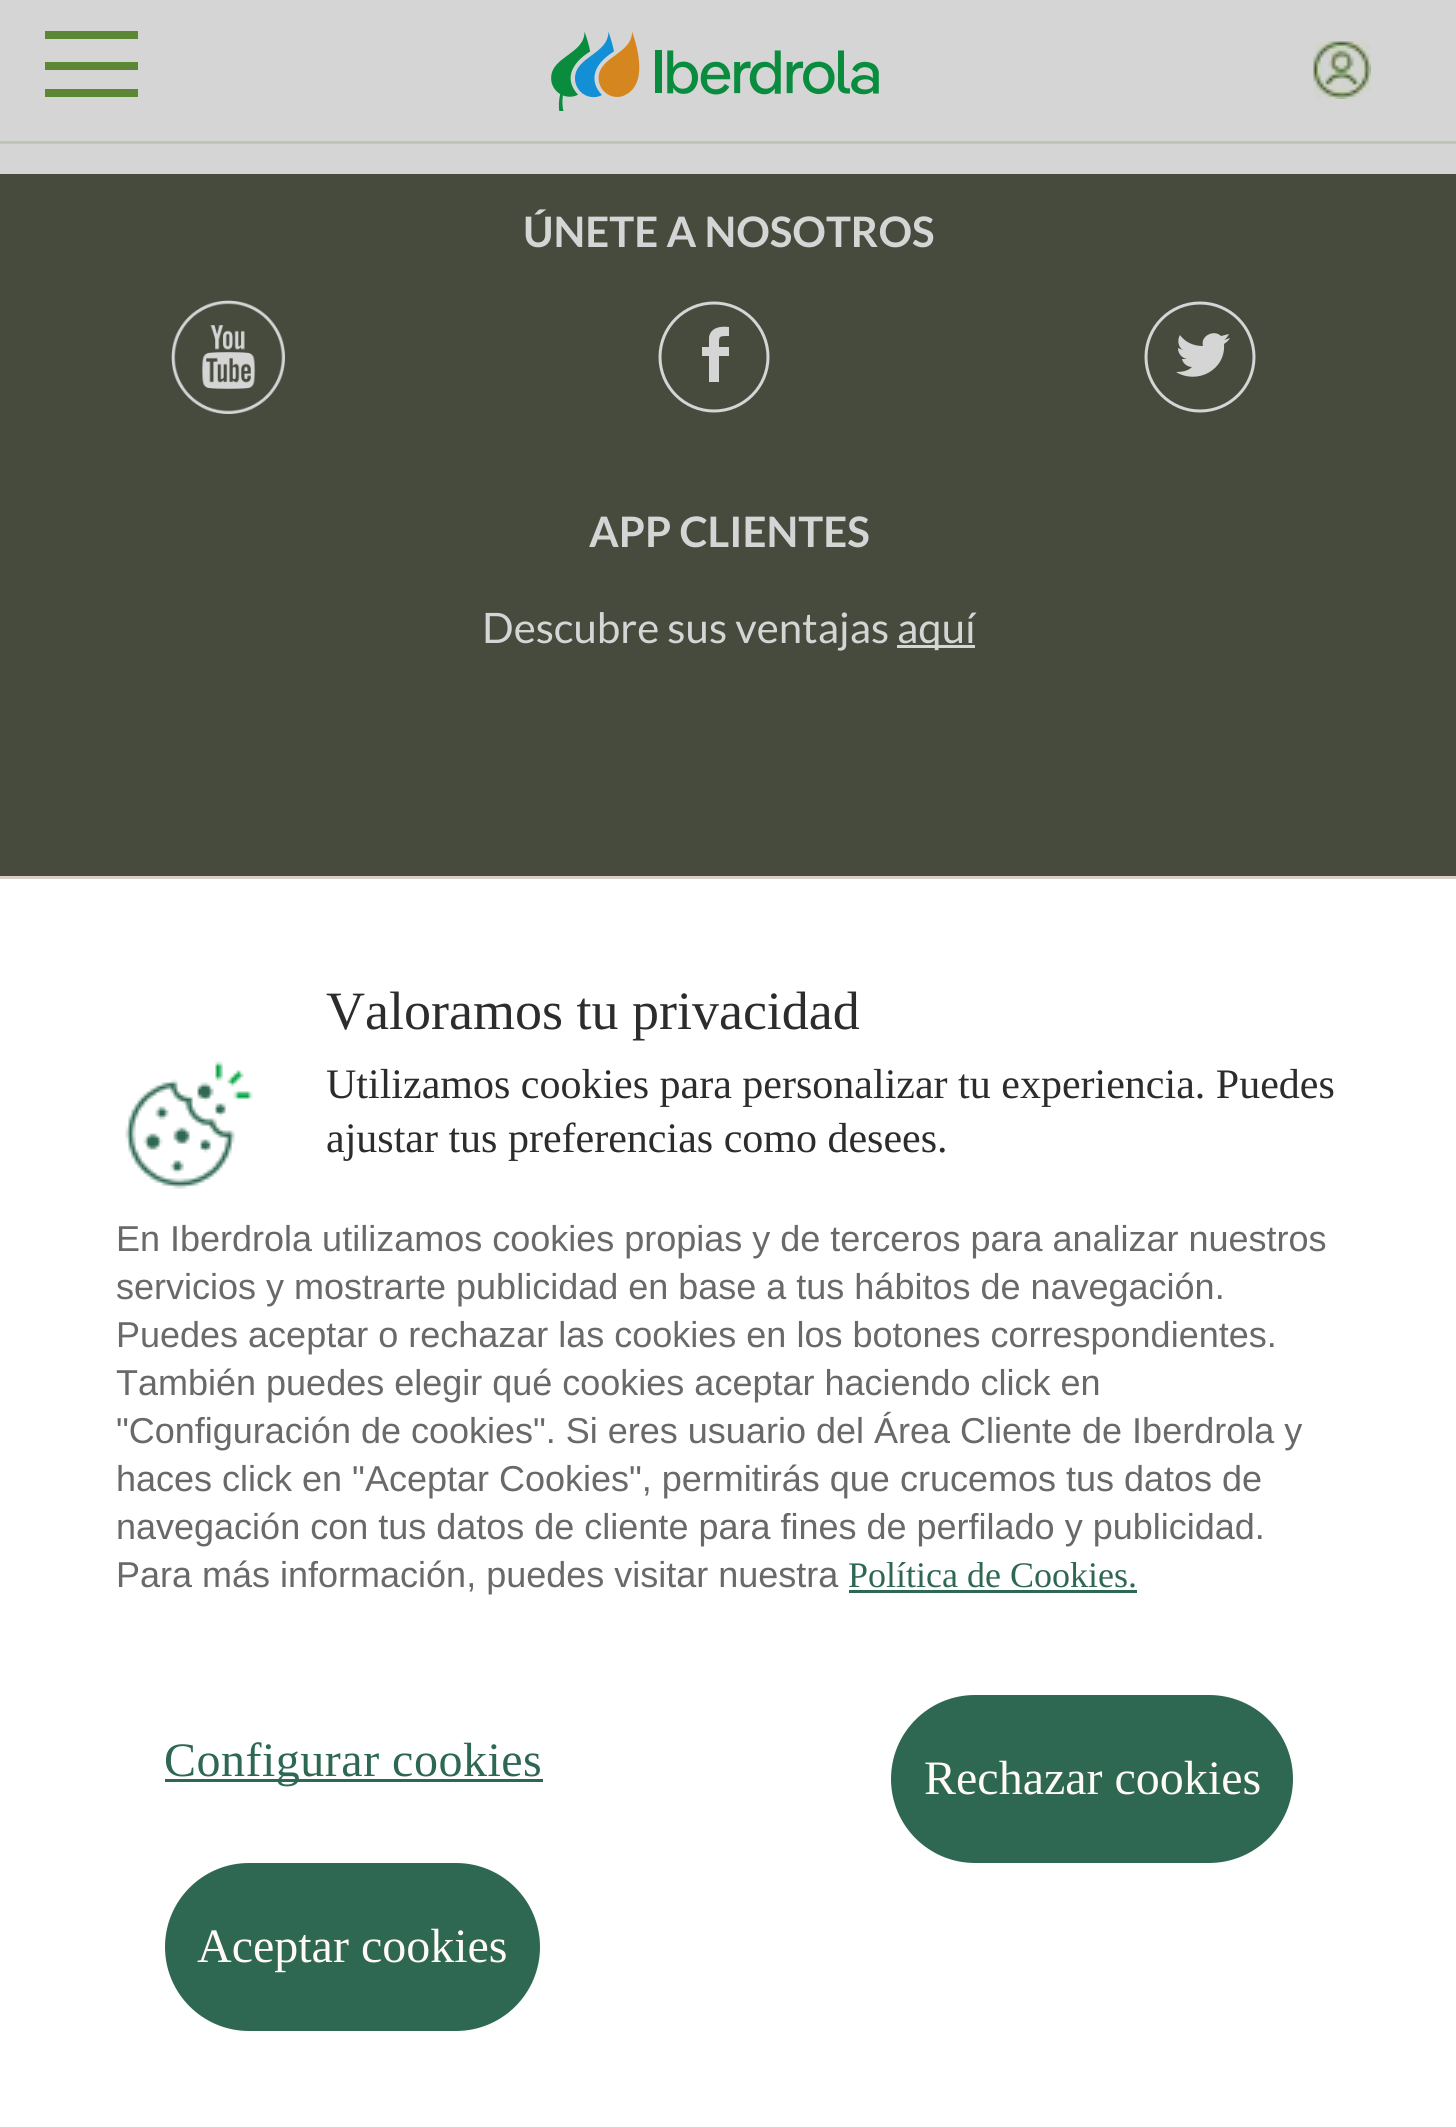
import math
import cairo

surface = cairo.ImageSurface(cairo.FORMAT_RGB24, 1456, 2127)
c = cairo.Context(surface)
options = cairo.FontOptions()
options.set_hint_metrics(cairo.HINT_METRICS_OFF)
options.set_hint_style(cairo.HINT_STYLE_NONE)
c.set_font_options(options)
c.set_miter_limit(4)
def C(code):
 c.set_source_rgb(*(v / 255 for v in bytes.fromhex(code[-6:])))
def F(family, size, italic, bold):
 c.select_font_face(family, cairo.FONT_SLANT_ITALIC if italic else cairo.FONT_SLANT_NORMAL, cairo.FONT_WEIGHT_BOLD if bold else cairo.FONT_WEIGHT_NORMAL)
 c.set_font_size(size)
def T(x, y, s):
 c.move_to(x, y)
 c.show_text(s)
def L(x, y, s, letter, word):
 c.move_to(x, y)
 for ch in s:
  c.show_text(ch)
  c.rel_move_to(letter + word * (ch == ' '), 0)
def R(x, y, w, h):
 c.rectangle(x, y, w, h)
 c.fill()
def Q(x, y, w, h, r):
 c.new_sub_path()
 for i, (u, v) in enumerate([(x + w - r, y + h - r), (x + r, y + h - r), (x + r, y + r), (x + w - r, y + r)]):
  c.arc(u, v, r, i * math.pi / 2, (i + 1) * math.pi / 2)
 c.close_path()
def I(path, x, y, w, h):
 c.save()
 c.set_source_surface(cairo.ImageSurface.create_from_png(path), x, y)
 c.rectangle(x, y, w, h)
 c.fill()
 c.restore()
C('d5d5d5')
c.paint()
C('bdc6b5')
R(0,141,1456,3)
C('5c8836')
c.new_path()
c.move_to(138,31)
c.line_to(45,31)
c.line_to(45,39)
c.line_to(138,39)
c.close_path()
c.move_to(45,62)
c.line_to(138,62)
c.line_to(138,70)
c.line_to(45,70)
c.close_path()
c.move_to(138,89)
c.line_to(45,89)
c.line_to(45,97)
c.line_to(138,97)
c.close_path()
c.fill()
I('1.png',551,31,328,80)
I('2.png',1313,41,58,58)
C('464b3e')
R(0,174,1456,702)
F('Lato',42,0,1)
C('d5d5d5')
T(523,247,'ÚNETE A NOSOTROS')
I('3.png',171,300,114,114)
c.arc(714,357,54,0,2 * math.pi)
c.set_line_width(3)
c.stroke()
c.set_fill_rule(cairo.FILL_RULE_EVEN_ODD)
c.new_path()
c.move_to(709,382)
c.line_to(709,356)
c.line_to(702,356)
c.line_to(702,347)
c.line_to(709,347)
c.line_to(709,337)
c.curve_to(711,327,721,326,729,327)
c.line_to(729,336)
c.curve_to(718,336,719,336,719,347)
c.line_to(729,347)
c.line_to(729,356)
c.line_to(719,356)
c.line_to(719,382)
c.close_path()
c.fill()
c.arc(1200,357,54,0,2 * math.pi)
c.stroke()
c.new_path()
c.move_to(1230,338)
c.line_to(1224,340)
c.curve_to(1226,339,1228,336,1229,334)
c.line_to(1221,336)
c.curve_to(1214,329,1200,336,1203,346)
c.curve_to(1193,346,1185,342,1180,335)
c.curve_to(1177,340,1178,347,1183,350)
c.line_to(1178,348)
c.curve_to(1178,354,1182,358,1187,359)
c.line_to(1182,359)
c.curve_to(1183,364,1188,367,1192,367)
c.curve_to(1188,371,1182,372,1176,372)
c.curve_to(1197,385,1226,370,1224,344)
c.curve_to(1227,342,1229,340,1230,338)
c.fill()
T(589,547,'APP CLIENTES')
F('Lato',42,0,0)
T(482,643,'Descubre sus ventajas')
R(897,645,78,3)
T(897,643,'aquí')
C('ffffff')
R(0,879,1456,1248)
C('d8cfc7')
R(0,876,1456,3)
F('Liberation Serif',54,0,0)
C('2c2c2c')
T(326,1029,'Valoramos tu privacidad')
F('Liberation Serif',42,0,0)
T(326,1098,'Utilizamos cookies para personalizar tu experiencia. Puedes')
T(326,1152,'ajustar tus preferencias como desees.')
F('Liberation Sans',36,0,0)
C('696969')
T(116,1251,'En Iberdrola utilizamos cookies propias y de terceros para analizar nuestros')
T(116,1299,'servicios y mostrarte publicidad en base a tus hábitos de navegación.')
T(116,1347,'Puedes aceptar o rechazar las cookies en los botones correspondientes.')
T(116,1395,'También puedes elegir qué cookies aceptar haciendo click en')
T(116,1443,'"Configuración de cookies". Si eres usuario del Área Cliente de Iberdrola y')
T(116,1491,'haces click en "Aceptar Cookies", permitirás que crucemos tus datos de')
T(116,1539,'navegación con tus datos de cliente para fines de perfilado y publicidad.')
T(116,1587,'Para más información, puedes visitar nuestra')
F('Liberation Serif',36,0,0)
C('2f6852')
T(848,1587,'Política de Cookies.')
R(849,1590,288,3)
I('4.png',125,1061,128,128)
R(165,1779,378,3)
F('Liberation Serif',48,0,0)
L(164,1776,'Configurar cookies',.5,0)
Q(892.5,1696.5,399,165,82.5)
c.fill_preserve()
c.stroke()
C('fffaf6')
T(924,1794,'Rechazar cookies')
C('2f6852')
Q(166.5,1864.5,372,165,82.5)
c.fill_preserve()
c.stroke()
C('fffaf6')
T(197,1962,'Aceptar cookies')
surface.write_to_png('o.png')
